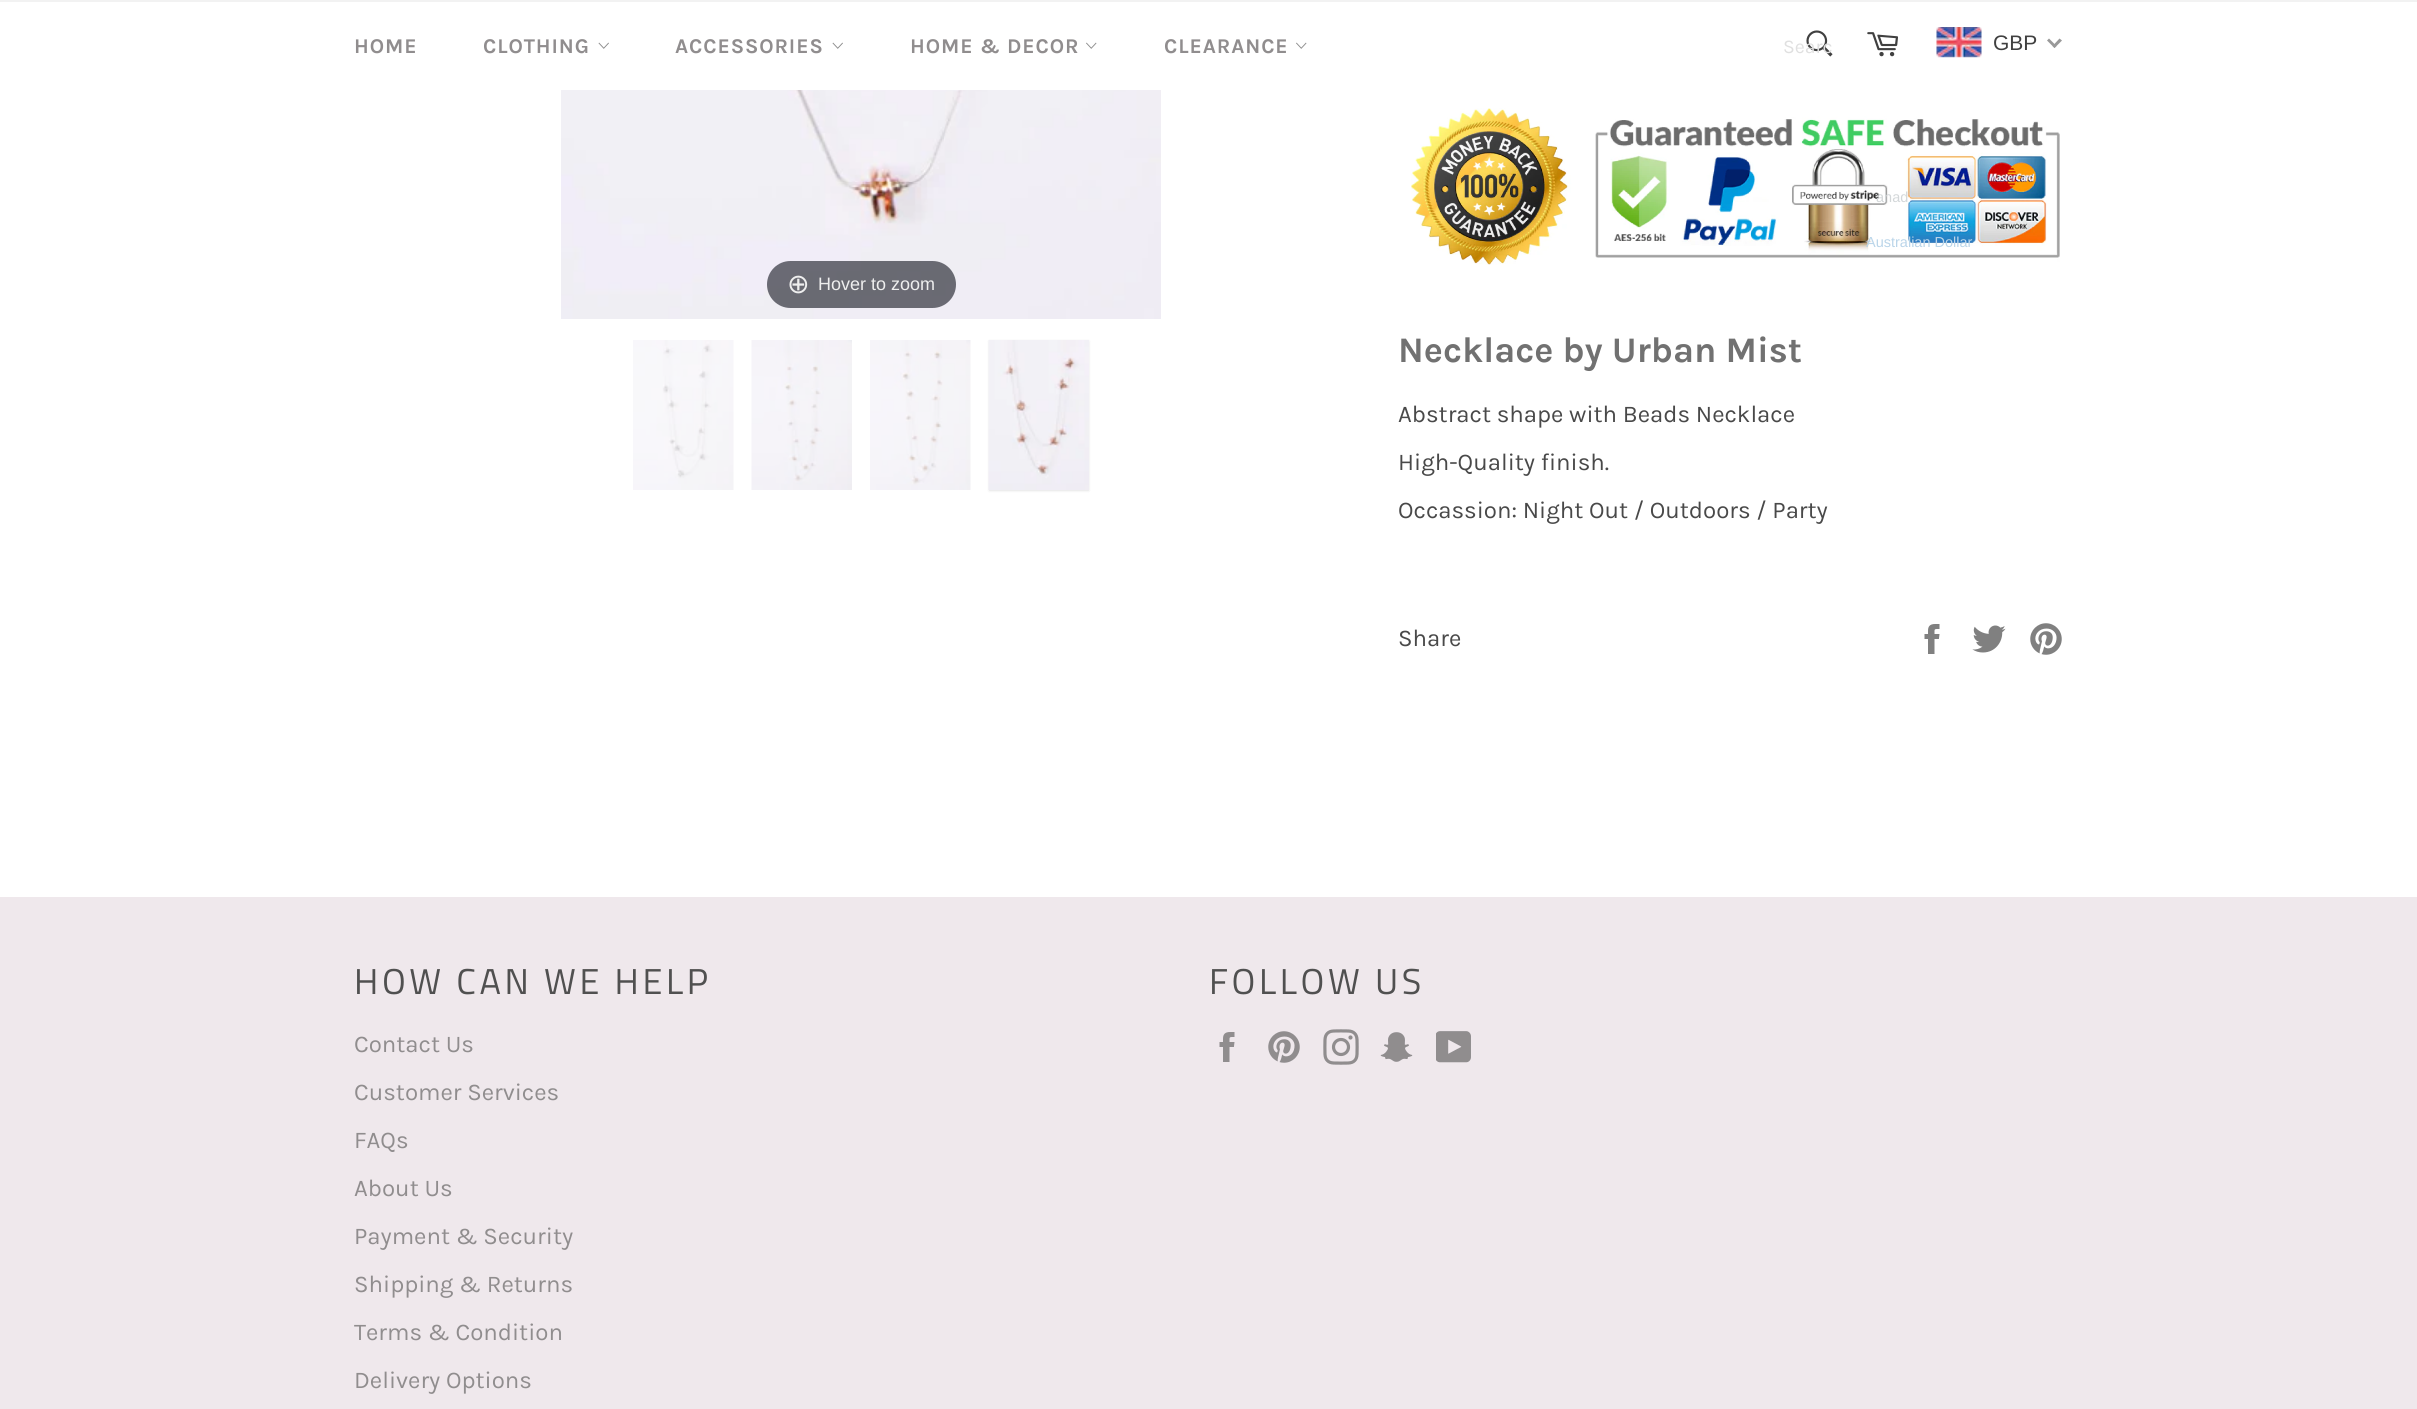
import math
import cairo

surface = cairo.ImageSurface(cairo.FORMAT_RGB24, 2417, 1409)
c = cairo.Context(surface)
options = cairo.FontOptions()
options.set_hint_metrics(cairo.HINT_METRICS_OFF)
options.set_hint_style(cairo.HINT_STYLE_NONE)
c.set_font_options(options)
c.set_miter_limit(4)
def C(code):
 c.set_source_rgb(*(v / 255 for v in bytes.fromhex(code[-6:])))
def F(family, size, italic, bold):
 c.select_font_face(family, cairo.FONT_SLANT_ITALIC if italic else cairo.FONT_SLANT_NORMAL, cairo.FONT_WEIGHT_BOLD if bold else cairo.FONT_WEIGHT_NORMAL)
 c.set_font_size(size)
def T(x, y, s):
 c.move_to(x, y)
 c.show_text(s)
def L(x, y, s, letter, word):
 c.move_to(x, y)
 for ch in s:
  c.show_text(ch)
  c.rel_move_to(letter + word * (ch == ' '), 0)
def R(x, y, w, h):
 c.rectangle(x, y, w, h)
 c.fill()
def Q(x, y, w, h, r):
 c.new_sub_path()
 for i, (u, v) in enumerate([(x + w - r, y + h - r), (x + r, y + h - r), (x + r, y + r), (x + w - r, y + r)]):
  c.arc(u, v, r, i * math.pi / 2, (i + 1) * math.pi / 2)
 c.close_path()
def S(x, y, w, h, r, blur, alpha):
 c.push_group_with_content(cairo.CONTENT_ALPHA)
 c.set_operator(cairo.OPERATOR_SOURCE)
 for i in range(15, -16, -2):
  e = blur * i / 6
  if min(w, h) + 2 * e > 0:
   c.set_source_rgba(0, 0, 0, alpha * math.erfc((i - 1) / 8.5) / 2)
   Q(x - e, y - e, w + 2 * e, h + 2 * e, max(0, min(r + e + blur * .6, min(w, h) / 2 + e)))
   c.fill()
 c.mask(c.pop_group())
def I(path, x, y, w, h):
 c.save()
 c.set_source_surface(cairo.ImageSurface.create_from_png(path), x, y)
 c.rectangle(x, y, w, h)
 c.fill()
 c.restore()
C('ffffff')
c.paint()
C('f2f2f2')
R(0,0,2417,2)
F('Karla',21,0,1)
C('908d8e')
L(354,53,'HOME',.9,0)
L(483,53,'CLOTHING',.9,0)
I('1.png',598,42,11,7)
L(675,53,'ACCESSORIES',.9,0)
I('1.png',832,42,11,7)
L(910,53,'HOME & DECOR',.9,0)
I('2.png',1086,42,11,7)
L(1164,53,'CLEARANCE',.9,0)
I('2.png',1296,42,11,7)
I('3.png',1867,32,31,25)
I('4.png',1806,30,27,27)
F('Karla',19.5,0,0)
C('e0e0e0')
T(1783,53,'Searc')
I('5.png',1936,27,46,31)
F('Liberation Sans',21,0,0)
C('404040')
T(1993,50,'GBP')
C('999999')
c.new_path()
c.move_to(2059.5,38.5)
c.line_to(2062,40.5)
c.line_to(2054.5,48)
c.line_to(2052.5,46)
c.close_path()
c.fill()
c.new_path()
c.move_to(2049,38.5)
c.line_to(2056.5,46)
c.line_to(2054.5,48)
c.line_to(2047,40.5)
c.close_path()
c.fill()
I('11.png',1411,108,649,157)
F('Liberation Sans',14.5,0,0)
C('d3d7d9')
T(1876,202,'anad')
C('bad5e9')
T(1866,247,'Australian Dollar')
I('6.png',561,90,600,229)
c.set_source_rgba(0.192,0.2,0.239,0.7)
Q(767,261,189,47,23.5)
c.fill()
F('DejaVu Sans',27,0,0)
C('eeeeee')
T(787,293,'⊕')
F('Liberation Sans',18,0,0)
T(818,290,'Hover to zoom')
I('7.png',633,340,101,150)
I('8.png',751,340,101,150)
I('9.png',870,340,101,150)
C('000000')
S(989,341,100,150,0,1,.1)
I('10.png',988,340,101,150)
F('Karla',36,0,1)
C('717171')
T(1398,362,'Necklace by Urban Mist')
F('Karla',24,0,0)
C('494949')
T(1398,422,'Abstract shape with Beads Necklace')
T(1398,470,'High-Quality finish.')
T(1398,518,'Occassion: Night Out / Outdoors / Party')
T(1398,646,'Share')
I('12.png',1924,624,16,30)
I('13.png',1972,625,34,28)
I('14.png',2030,623,32,32)
C('efe8ec')
R(0,897,2417,512)
F('Titillium Web',36,0,0)
C('505050')
L(354,994,'HOW CAN WE HELP',3.6,0)
F('Karla',24,0,0)
C('908d8e')
T(354,1052,'Contact Us')
T(354,1100,'Customer Services')
T(354,1148,'FAQs')
T(354,1196,'About Us')
T(354,1244,'Payment & Security')
T(354,1292,'Shipping & Returns')
T(354,1340,'Terms & Condition')
T(354,1388,'Delivery Options')
F('Titillium Web',36,0,0)
C('505050')
L(1209,994,'FOLLOW US',3.6,0)
I('15.png',1219,1032,16,30)
I('16.png',1268,1031,32,32)
I('17.png',1323,1029,36,36)
I('18.png',1380,1032,33,30)
I('19.png',1436,1031,35,32)
surface.write_to_png('o.png')
